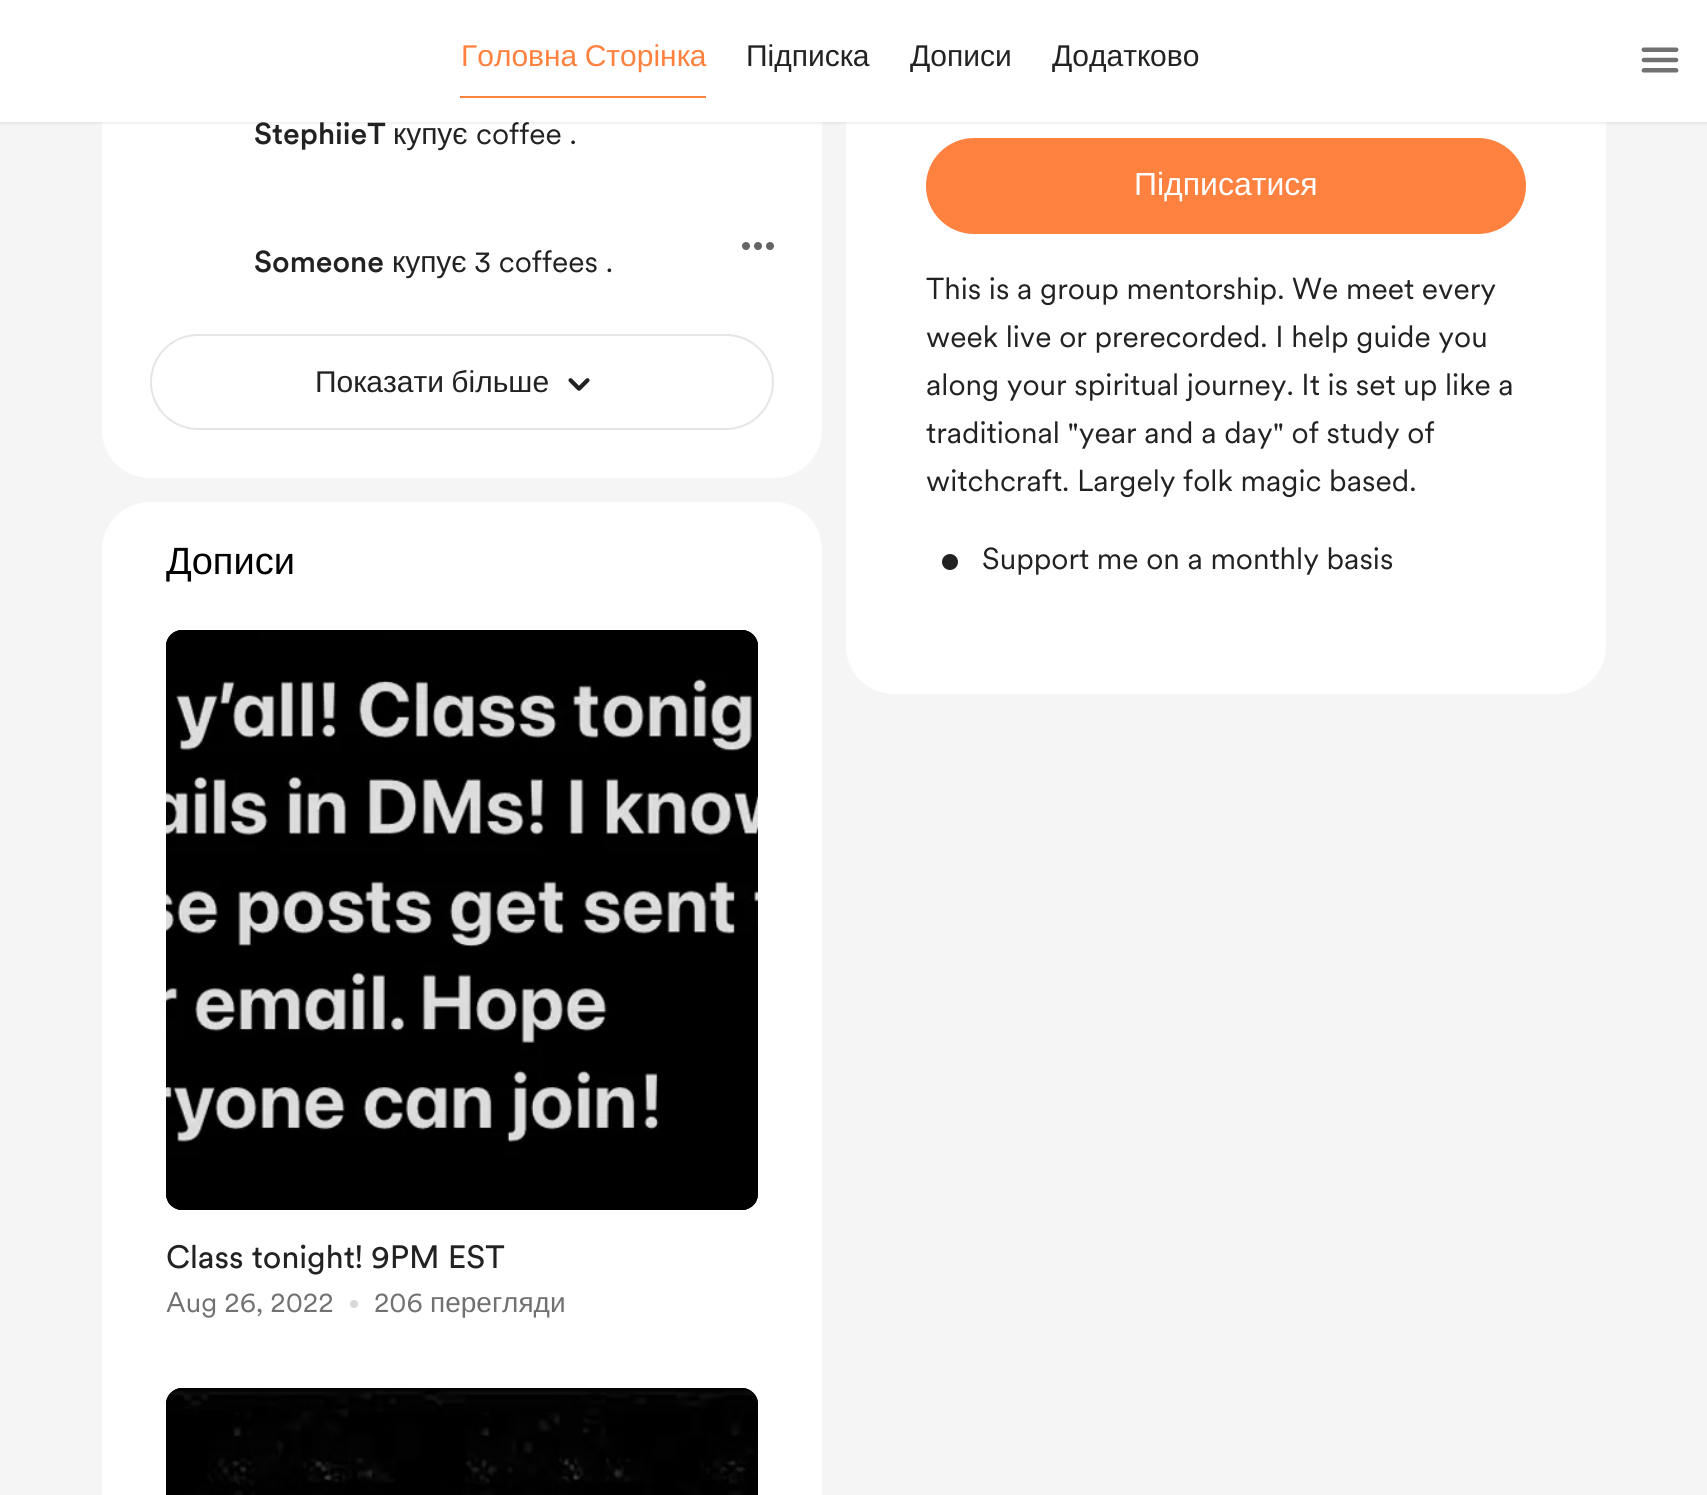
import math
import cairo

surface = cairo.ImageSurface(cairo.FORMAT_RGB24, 1707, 1495)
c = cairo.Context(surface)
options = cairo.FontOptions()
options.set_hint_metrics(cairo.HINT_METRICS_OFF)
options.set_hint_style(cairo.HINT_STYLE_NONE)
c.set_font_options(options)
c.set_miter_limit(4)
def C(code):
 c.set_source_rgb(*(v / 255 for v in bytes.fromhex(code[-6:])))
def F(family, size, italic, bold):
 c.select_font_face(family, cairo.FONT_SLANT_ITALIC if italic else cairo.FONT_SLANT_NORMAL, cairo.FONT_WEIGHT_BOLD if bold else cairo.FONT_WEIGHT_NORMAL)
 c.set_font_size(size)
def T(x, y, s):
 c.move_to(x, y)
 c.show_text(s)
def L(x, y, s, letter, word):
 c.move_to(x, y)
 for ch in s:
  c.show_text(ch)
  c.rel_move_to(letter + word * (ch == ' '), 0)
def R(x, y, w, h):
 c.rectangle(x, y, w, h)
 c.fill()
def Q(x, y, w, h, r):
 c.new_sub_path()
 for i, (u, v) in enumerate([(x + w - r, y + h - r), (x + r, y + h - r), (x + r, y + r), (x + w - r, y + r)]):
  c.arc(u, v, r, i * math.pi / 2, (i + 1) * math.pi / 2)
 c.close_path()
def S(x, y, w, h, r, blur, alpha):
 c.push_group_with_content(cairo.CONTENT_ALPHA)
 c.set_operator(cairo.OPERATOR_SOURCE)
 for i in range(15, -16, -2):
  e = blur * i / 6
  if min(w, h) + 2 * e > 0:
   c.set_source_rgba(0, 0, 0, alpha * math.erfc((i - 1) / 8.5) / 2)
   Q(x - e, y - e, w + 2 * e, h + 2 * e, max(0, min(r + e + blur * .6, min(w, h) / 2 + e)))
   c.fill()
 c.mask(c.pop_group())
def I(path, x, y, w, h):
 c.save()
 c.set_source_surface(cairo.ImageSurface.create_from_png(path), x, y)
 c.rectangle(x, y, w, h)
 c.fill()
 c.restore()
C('f5f5f5')
c.paint()
C('ffffff')
Q(102,-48,720,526,48)
c.fill()
Q(846,-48,760,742,48)
c.fill()
C('000000')
S(0,2,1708,122,0,1,.06)
C('ffffff')
R(0,0,1707,122)
F('Liberation Sans',30,0,0)
C('ff813f')
L(461,66,'Головна Сторінка',0,-1)
R(460,96,246,2)
C('222222')
T(746,66,'Підписка')
T(910,66,'Дописи')
T(1052,66,'Додатково')
I('1.png',1641,47,38,26)
F('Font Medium',30,0,0)
T(254,144,'StephiieT')
F('Liberation Sans',30,0,0)
T(393,144,'купує')
F('Font',30,0,0)
T(476,144,'coffee .')
I('2.png',742,242,32,8)
F('Font Medium',30,0,0)
T(254,272,'Someone')
F('Liberation Sans',30,0,0)
T(392,272,'купує')
F('Font',30,0,0)
T(474,272,'3 coffees .')
Q(151,335,622,94,47)
C('e5e5e5')
c.stroke()
F('Liberation Sans',30,0,0)
C('222222')
L(315,392,'Показати більше',0,-1)
I('3.png',568,378,22,13)
C('ffffff')
Q(102,502,720,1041,48)
c.fill()
F('Liberation Sans',38,0,0)
C('000000')
T(166,574,'Дописи')
I('4.png',166,630,592,580)
I('5.png',166,630,592,580)
F('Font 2',32,0,0)
C('222222')
T(166,1268,'Class tonight! 9PM EST')
F('Font',28,0,0)
C('717171')
T(166,1312,'Aug 26, 2022')
C('d9d9d9')
c.new_path()
c.arc(354,1304,4,0,2 * math.pi)
c.fill()
C('717171')
T(374,1312,'206')
F('Liberation Sans',28,0,0)
T(430,1312,'перегляди')
I('6.png',166,1388,592,107)
I('7.png',166,1388,592,16)
C('ff813f')
Q(926,138,600,96,48)
c.fill()
F('Liberation Sans',32,0,0)
C('ffffff')
T(1134,195,'Підписатися')
F('Font',30,0,0)
C('222222')
T(926,299,'This is a group mentorship. We meet every')
T(926,347,'week live or prerecorded. I help guide you')
T(926,395,'along your spiritual journey. It is set up like a')
T(926,443,'traditional "year and a day" of study of')
T(926,491,'witchcraft. Largely folk magic based.')
c.new_path()
c.arc(950,562,8,0,2 * math.pi)
c.fill()
T(982,569,'Support me on a monthly basis')
surface.write_to_png('o.png')
